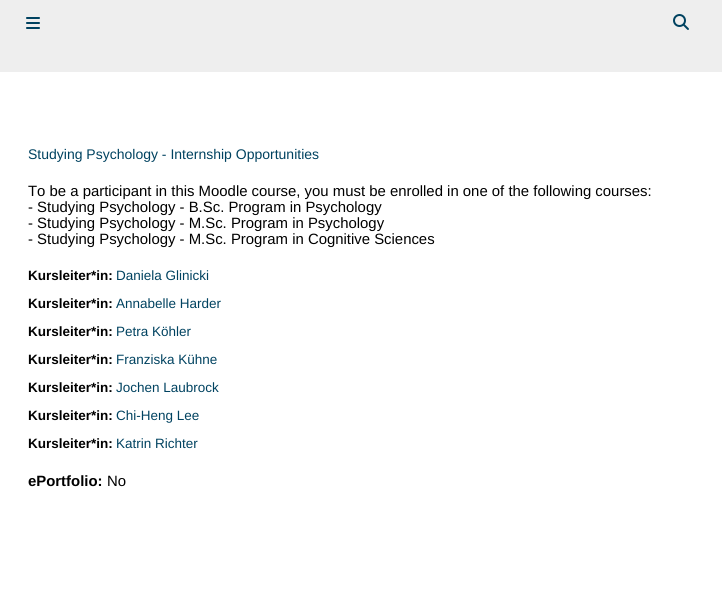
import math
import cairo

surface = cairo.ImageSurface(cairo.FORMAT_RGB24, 722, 605)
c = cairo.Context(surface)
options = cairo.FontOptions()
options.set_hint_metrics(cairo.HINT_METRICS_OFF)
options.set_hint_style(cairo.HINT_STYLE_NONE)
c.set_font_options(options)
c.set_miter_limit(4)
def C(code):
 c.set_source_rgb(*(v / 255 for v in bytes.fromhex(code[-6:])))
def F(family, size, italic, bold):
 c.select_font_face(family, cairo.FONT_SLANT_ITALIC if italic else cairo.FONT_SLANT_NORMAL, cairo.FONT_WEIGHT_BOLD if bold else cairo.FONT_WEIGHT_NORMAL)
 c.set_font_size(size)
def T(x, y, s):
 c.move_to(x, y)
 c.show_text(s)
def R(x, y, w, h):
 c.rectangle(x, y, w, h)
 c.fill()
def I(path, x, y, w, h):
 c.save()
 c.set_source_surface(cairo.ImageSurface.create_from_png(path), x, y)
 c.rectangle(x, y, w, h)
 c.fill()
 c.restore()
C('ffffff')
c.paint()
C('eeeeee')
R(0,0,722,72)
I('1.png',26,17,14,12)
I('2.png',673,14,16,16)
F('Liberation Sans',14,0,0)
C('004260')
T(28,159,'Studying Psychology - Internship Opportunities')
F('Liberation Sans',14.9,0,0)
C('000000')
T(28,196,'To be a participant in this Moodle course, you must be enrolled in one of the following courses:')
T(28,212,'- Studying Psychology - B.Sc. Program in Psychology')
T(28,228,'- Studying Psychology - M.Sc. Program in Psychology')
T(28,244,'- Studying Psychology - M.Sc. Program in Cognitive Sciences')
F('Liberation Sans',13.5,0,1)
T(28,280,'Kursleiter*in:')
F('Liberation Sans',13.5,0,0)
C('004260')
T(116,280,'Daniela Glinicki')
F('Liberation Sans',13.5,0,1)
C('000000')
T(28,308,'Kursleiter*in:')
F('Liberation Sans',13.5,0,0)
C('004260')
T(116,308,'Annabelle Harder')
F('Liberation Sans',13.5,0,1)
C('000000')
T(28,336,'Kursleiter*in:')
F('Liberation Sans',13.5,0,0)
C('004260')
T(116,336,'Petra Köhler')
F('Liberation Sans',13.5,0,1)
C('000000')
T(28,364,'Kursleiter*in:')
F('Liberation Sans',13.5,0,0)
C('004260')
T(116,364,'Franziska Kühne')
F('Liberation Sans',13.5,0,1)
C('000000')
T(28,392,'Kursleiter*in:')
F('Liberation Sans',13.5,0,0)
C('004260')
T(116,392,'Jochen Laubrock')
F('Liberation Sans',13.5,0,1)
C('000000')
T(28,420,'Kursleiter*in:')
F('Liberation Sans',13.5,0,0)
C('004260')
T(116,420,'Chi-Heng Lee')
F('Liberation Sans',13.5,0,1)
C('000000')
T(28,448,'Kursleiter*in:')
F('Liberation Sans',13.5,0,0)
C('004260')
T(116,448,'Katrin Richter')
F('Liberation Sans',14.9,0,1)
C('000000')
T(28,486,'ePortfolio:')
F('Liberation Sans',14.9,0,0)
T(107,486,'No')
surface.write_to_png('o.png')
